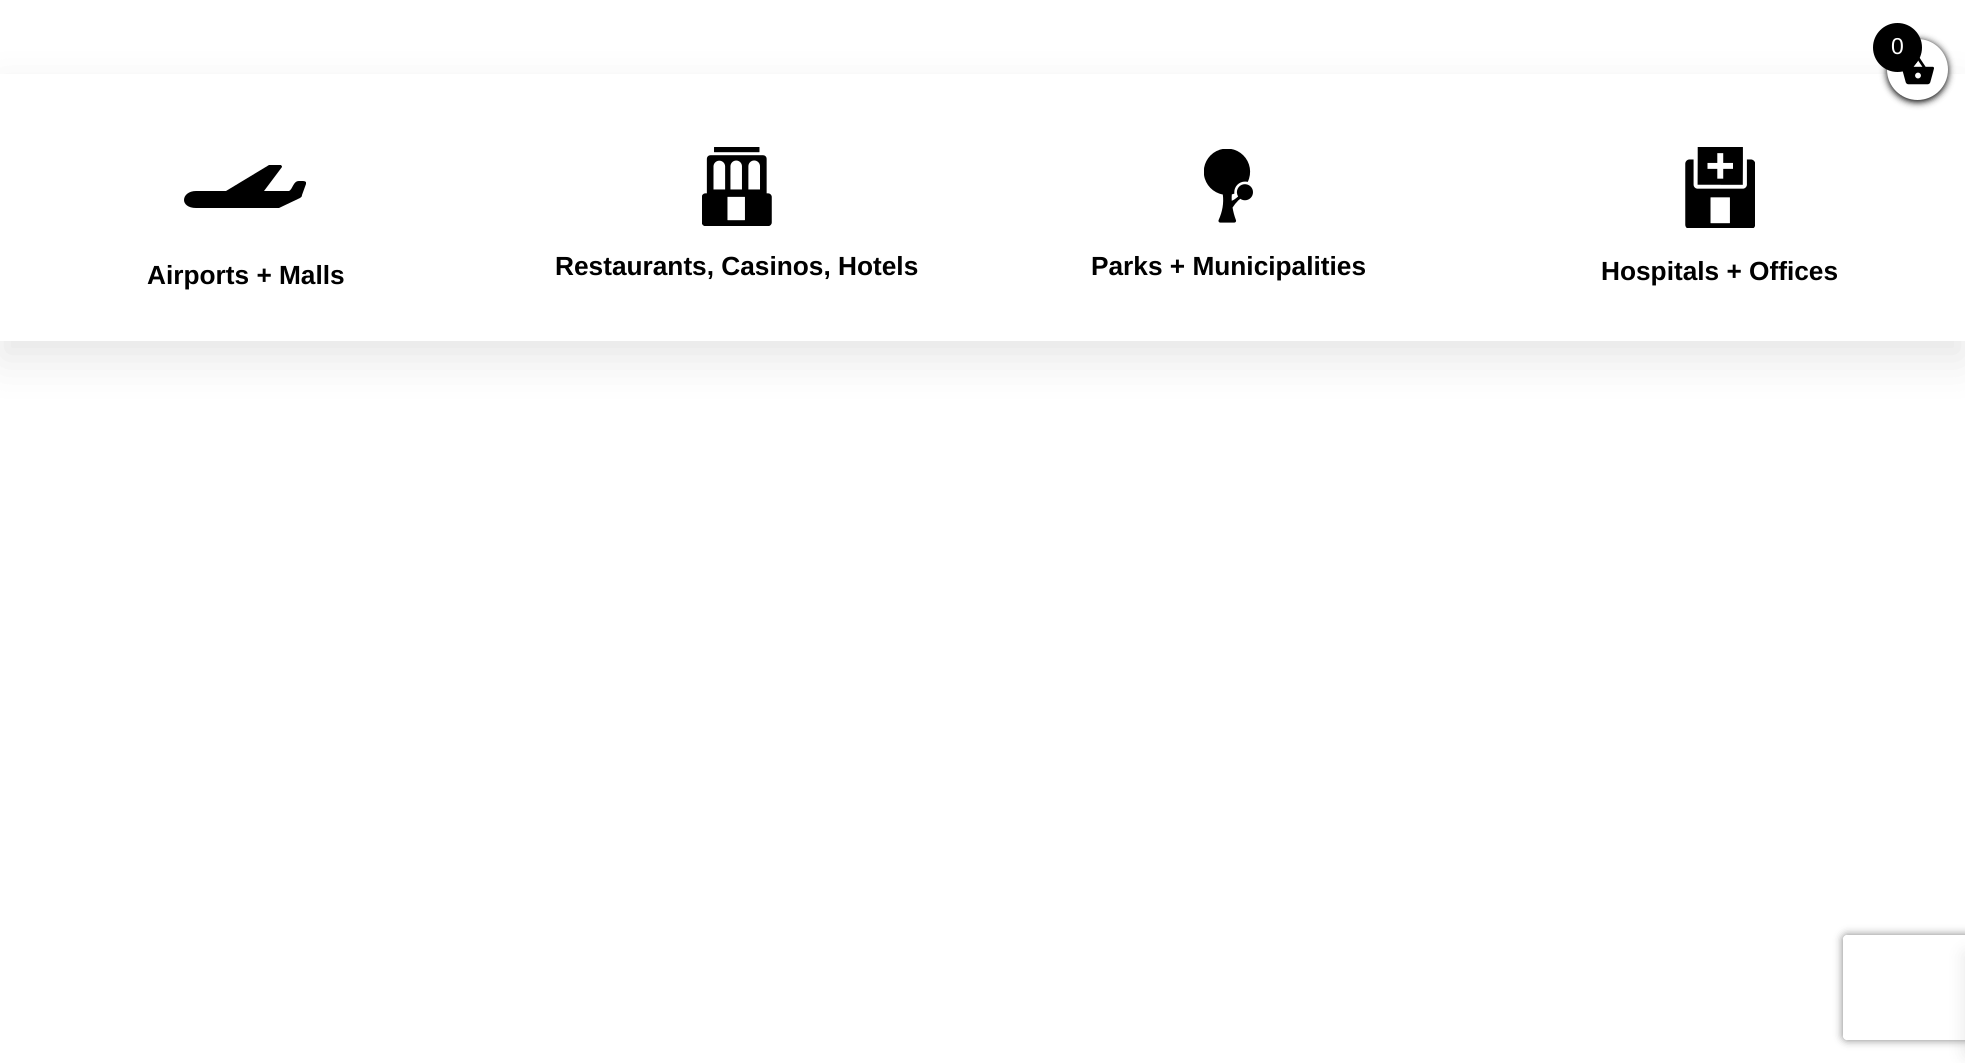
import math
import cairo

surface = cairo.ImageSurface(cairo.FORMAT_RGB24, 1965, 1063)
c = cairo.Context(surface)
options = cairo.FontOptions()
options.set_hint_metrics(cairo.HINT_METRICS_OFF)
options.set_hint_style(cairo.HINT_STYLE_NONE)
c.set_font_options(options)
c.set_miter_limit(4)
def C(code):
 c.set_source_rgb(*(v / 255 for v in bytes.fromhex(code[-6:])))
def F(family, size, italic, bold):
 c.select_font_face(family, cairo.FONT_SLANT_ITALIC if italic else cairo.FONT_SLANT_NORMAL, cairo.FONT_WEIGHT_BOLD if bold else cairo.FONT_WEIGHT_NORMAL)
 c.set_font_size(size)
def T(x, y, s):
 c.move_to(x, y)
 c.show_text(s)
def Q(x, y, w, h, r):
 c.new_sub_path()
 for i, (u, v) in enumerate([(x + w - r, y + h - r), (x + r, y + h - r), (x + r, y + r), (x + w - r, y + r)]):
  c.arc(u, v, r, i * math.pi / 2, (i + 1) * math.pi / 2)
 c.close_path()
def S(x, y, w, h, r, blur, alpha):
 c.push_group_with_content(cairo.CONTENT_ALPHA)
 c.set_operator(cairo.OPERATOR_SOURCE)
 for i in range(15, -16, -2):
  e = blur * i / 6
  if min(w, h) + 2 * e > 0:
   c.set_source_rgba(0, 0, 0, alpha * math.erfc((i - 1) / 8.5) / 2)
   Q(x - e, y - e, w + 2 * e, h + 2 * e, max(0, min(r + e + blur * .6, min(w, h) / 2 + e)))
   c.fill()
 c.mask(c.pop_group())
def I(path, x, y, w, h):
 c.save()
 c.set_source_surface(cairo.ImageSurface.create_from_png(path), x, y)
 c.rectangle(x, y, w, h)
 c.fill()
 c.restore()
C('ffffff')
c.paint()
C('000000')
S(1887,40,61,62,30.5,3.5,1)
c.save()
c.set_fill_rule(cairo.FILL_RULE_EVEN_ODD)
c.new_path()
c.move_to(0,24)
c.line_to(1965,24)
c.line_to(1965,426)
c.line_to(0,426)
c.close_path()
c.move_to(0,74)
c.line_to(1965,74)
c.line_to(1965,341)
c.line_to(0,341)
c.close_path()
c.clip()
S(0,91,1965,268,0,22,.1)
c.restore()
C('ffffff')
c.arc(1917.5,69.5,30.5,0,2 * math.pi)
c.fill()
I('1.png',1902,57,32,28)
C('000000')
c.arc(1897.5,47.5,24.5,0,2 * math.pi)
c.fill()
F('Liberation Sans',23,0,0)
C('ffffff')
T(1891,54,'0')
C('000000')
S(1965,954,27,101,0,9,.1)
c.save()
c.rectangle(184,165,122,43)
c.clip()
C('000000')
c.new_path()
c.move_to(303,181)
c.curve_to(305,181,307,182,306,184)
c.line_to(302,195)
c.curve_to(302,197,301,197,300,198)
c.line_to(279,208)
c.line_to(277,208)
c.line_to(196,208)
c.curve_to(188,208,184,204,184,200)
c.curve_to(184,195,189,191,196,191)
c.line_to(226,191)
c.line_to(269,165)
c.curve_to(271,164,273,164,276,164)
c.curve_to(277,164,282,164,282,167)
c.line_to(264,191)
c.line_to(289,191)
c.curve_to(293,189,293,181,299,181)
c.close_path()
c.fill()
c.restore()
F('Liberation Sans',26.25,0,1)
C('000000')
T(147,284,'Airports + Malls')
I('2.png',702,147,70,79)
T(555,275,'Restaurants, Casinos, Hotels')
I('3.png',1204,149,49,74)
T(1091,275,'Parks + Municipalities')
I('4.png',1685,147,70,81)
T(1601,280,'Hospitals + Offices')
c.save()
c.set_fill_rule(cairo.FILL_RULE_EVEN_ODD)
c.new_path()
c.move_to(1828,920)
c.line_to(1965,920)
c.line_to(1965,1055)
c.line_to(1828,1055)
c.close_path()
c.move_to(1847,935)
c.line_to(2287,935)
c.curve_to(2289,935,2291,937,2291,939)
c.line_to(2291,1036)
c.curve_to(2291,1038,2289,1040,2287,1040)
c.line_to(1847,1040)
c.curve_to(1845,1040,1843,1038,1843,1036)
c.line_to(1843,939)
c.curve_to(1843,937,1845,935,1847,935)
c.close_path()
c.clip()
C('808080')
S(1843,935,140,105,4,4.5,1)
c.restore()
surface.write_to_png('o.png')
